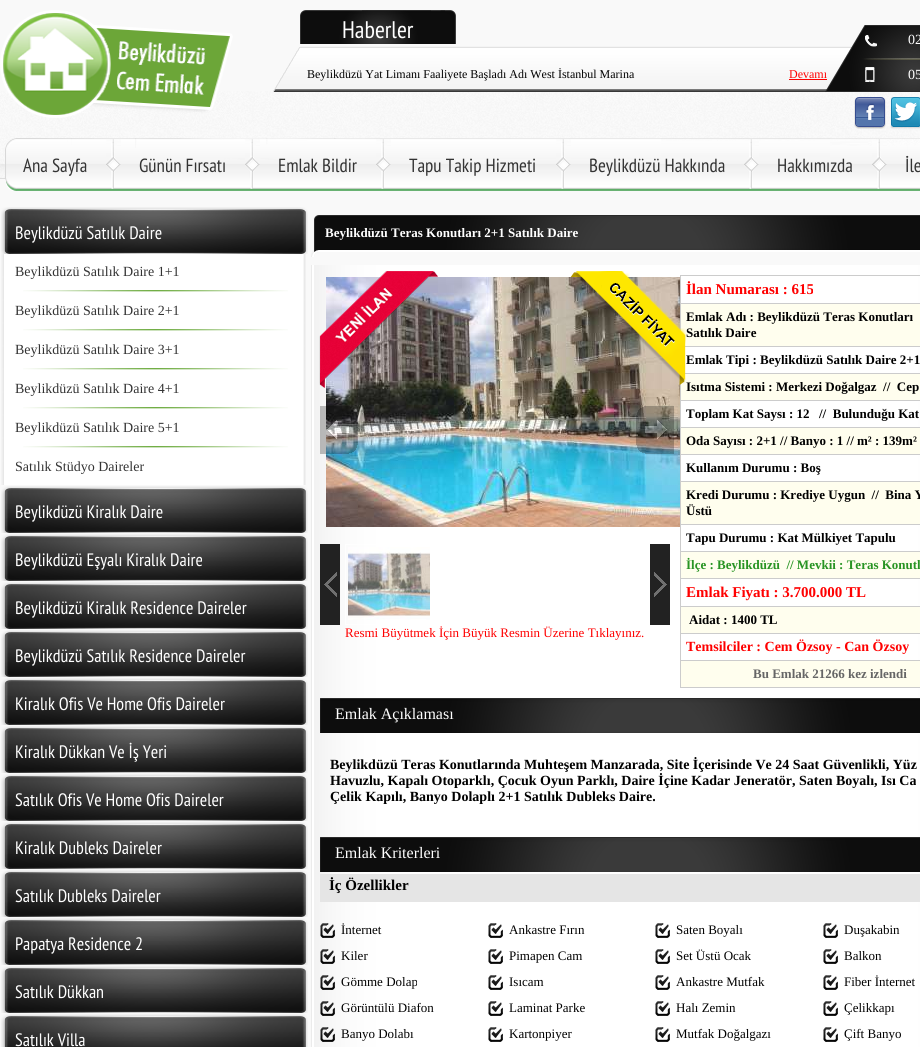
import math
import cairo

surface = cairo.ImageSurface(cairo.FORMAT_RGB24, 920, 1047)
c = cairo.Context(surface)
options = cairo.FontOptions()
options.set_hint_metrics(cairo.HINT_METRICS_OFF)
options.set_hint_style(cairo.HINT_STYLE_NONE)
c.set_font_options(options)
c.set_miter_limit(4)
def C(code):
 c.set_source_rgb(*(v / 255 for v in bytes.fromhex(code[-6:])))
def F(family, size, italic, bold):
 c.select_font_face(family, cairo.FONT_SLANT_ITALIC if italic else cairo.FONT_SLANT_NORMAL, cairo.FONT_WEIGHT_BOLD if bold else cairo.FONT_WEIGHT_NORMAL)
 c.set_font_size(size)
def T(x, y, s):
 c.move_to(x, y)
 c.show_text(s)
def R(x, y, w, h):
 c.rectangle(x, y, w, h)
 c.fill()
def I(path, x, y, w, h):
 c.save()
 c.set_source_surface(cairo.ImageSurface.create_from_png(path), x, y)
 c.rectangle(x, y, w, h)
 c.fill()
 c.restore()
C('f9f9f9')
c.paint()
I('1.png',0,91,920,88)
I('2.png',0,10,233,108)
I('3.png',300,10,156,34)
F('PT Sans Narrow',24,0,0)
C('ffffff')
T(342,38,'Haberler')
I('4.png',273,46,579,46)
F('Liberation Serif',12,0,0)
C('000000')
T(307,78,'Beylikdüzü Yat Limanı Faaliyete Başladı Adı West İstanbul Marina')
C('ff0000')
T(789,78,'Devamı')
R(789,79,38,1)
I('5.png',825,25,95,67)
I('6.png',865,35,12,12)
F('Liberation Serif',14,0,0)
C('ffffff')
T(908,44,'02')
I('7.png',865,67,10,15)
T(908,79,'05')
I('8.png',854,97,32,32)
I('9.png',890,97,30,32)
I('10.png',5,138,915,53)
F('PT Sans Narrow',19,0,0)
C('333333')
T(23,172,'Ana Sayfa')
I('11.png',106,139,15,50)
T(139,172,'Günün Fırsatı')
I('11.png',245,139,15,50)
T(278,172,'Emlak Bildir')
I('11.png',376,139,15,50)
T(409,172,'Tapu Takip Hizmeti')
I('11.png',556,139,15,50)
T(589,172,'Beylikdüzü Hakkında')
I('11.png',744,139,15,50)
T(777,172,'Hakkımızda')
I('11.png',872,139,15,50)
T(905,172,'İle')
I('12.png',1,207,307,47)
F('PT Sans Narrow',18,0,0)
C('ffffff')
T(15,239,'Beylikdüzü Satılık Daire')
I('13.png',1,254,305,231)
F('Liberation Serif',14,0,0)
C('333333')
T(15,276,'Beylikdüzü Satılık Daire 1+1')
I('14.png',23,290,265,2)
T(15,315,'Beylikdüzü Satılık Daire 2+1')
I('14.png',23,329,265,2)
T(15,354,'Beylikdüzü Satılık Daire 3+1')
I('14.png',23,368,265,2)
T(15,393,'Beylikdüzü Satılık Daire 4+1')
I('14.png',23,407,265,2)
T(15,432,'Beylikdüzü Satılık Daire 5+1')
I('14.png',23,446,265,2)
T(15,471,'Satılık Stüdyo Daireler')
I('12.png',1,486,307,47)
F('PT Sans Narrow',18,0,0)
C('ffffff')
T(15,518,'Beylikdüzü Kiralık Daire')
I('12.png',1,534,307,47)
T(15,566,'Beylikdüzü Eşyalı Kiralık Daire')
I('12.png',1,582,307,47)
T(15,614,'Beylikdüzü Kiralık Residence Daireler')
I('12.png',1,630,307,47)
T(15,662,'Beylikdüzü Satılık Residence Daireler')
I('12.png',1,678,307,47)
T(15,710,'Kiralık Ofis Ve Home Ofis Daireler')
I('12.png',1,726,307,47)
T(15,758,'Kiralık Dükkan Ve İş Yeri')
I('12.png',1,774,307,47)
T(15,806,'Satılık Ofis Ve Home Ofis Daireler')
I('12.png',1,822,307,47)
T(15,854,'Kiralık Dubleks Daireler')
I('12.png',1,870,307,47)
T(15,902,'Satılık Dubleks Daireler')
I('12.png',1,918,307,47)
T(15,950,'Papatya Residence 2')
I('12.png',1,966,307,47)
T(15,998,'Satılık Dükkan')
I('15.png',1,1014,307,33)
T(15,1046,'Satılık Villa')
I('16.png',311,215,609,42)
F('Liberation Serif',13,0,1)
T(325,237,'Beylikdüzü Teras Konutları 2+1 Satılık Daire')
I('17.png',311,265,609,782)
I('18.png',326,277,354,250)
I('19.png',320,406,38,48)
I('20.png',636,406,38,48)
C('222222')
R(320,544,20,81)
I('21.png',324,572,13,25)
c.rectangle(345.5,544.5,87,80)
c.set_source_rgba(1,1,1,0.7)
c.set_line_width(1)
c.stroke()
I('22.png',348,547,82,73)
C('222222')
R(650,544,20,81)
I('23.png',654,572,13,25)
F('Liberation Serif',13,0,0)
C('ff0000')
T(345,637,'Resmi Büyütmek İçin Büyük Resmin Üzerine Tıklayınız.')
C('cccccc')
R(680,275,240,1)
R(680,275,1,413)
R(681,303,239,1)
F('Liberation Serif',15,0,1)
C('ff0000')
T(686,294,'İlan Numarası : 615')
C('fffeee')
R(681,304,239,42)
C('cccccc')
R(681,346,239,1)
F('Liberation Serif',13,0,1)
C('000000')
T(686,321,'Emlak Adı : Beylikdüzü Teras Konutları')
T(686,337,'Satılık Daire')
C('cccccc')
R(681,373,239,1)
C('000000')
T(686,364,'Emlak Tipi : Beylikdüzü Satılık Daire 2+1')
C('fffeee')
R(681,374,239,26)
C('cccccc')
R(681,400,239,1)
C('000000')
T(686,391,'Isıtma Sistemi : Merkezi Doğalgaz  //  Cep')
C('cccccc')
R(681,427,239,1)
C('000000')
T(686,418,'Toplam Kat Saysı : 12')
T(819,418,'//  Bulunduğu Kat')
C('fffeee')
R(681,428,239,26)
C('cccccc')
R(681,454,239,1)
C('000000')
T(686,445,'Oda Sayısı : 2+1 // Banyo : 1 // m² : 139m²')
C('cccccc')
R(681,481,239,1)
C('000000')
T(686,472,'Kullanım Durumu : Boş')
C('fffeee')
R(681,482,239,42)
C('cccccc')
R(681,524,239,1)
C('000000')
T(686,499,'Kredi Durumu : Krediye Uygun  //  Bina Y')
T(686,515,'Üstü')
C('cccccc')
R(681,551,239,1)
C('000000')
T(686,542,'Tapu Durumu : Kat Mülkiyet Tapulu')
C('fffeee')
R(681,552,239,26)
C('cccccc')
R(681,578,239,1)
C('289423')
T(686,569,'İlçe : Beylikdüzü  // Mevkii : Teras Konutl')
C('cccccc')
R(681,606,239,1)
F('Liberation Serif',15,0,1)
C('ff0000')
T(686,597,'Emlak Fiyatı : 3.700.000 TL')
C('fffeee')
R(681,607,239,26)
C('cccccc')
R(681,633,239,1)
F('Liberation Serif',13,0,1)
C('000000')
T(689,624,'Aidat : 1400 TL')
C('cccccc')
R(681,660,239,1)
F('Liberation Serif',14,0,1)
C('ff0000')
T(686,651,'Temsilciler : Cem Özsoy - Can Özsoy')
C('fffeee')
R(681,661,239,26)
C('cccccc')
R(681,687,239,1)
F('Liberation Serif',13,0,1)
C('666666')
T(753,678,'Bu Emlak 21266 kez izlendi')
I('24.png',320,698,600,35)
F('Liberation Serif',16,0,0)
C('ffffff')
T(335,719,'Emlak Açıklaması')
F('Liberation Serif',14,0,1)
C('000000')
T(330,769,'Beylikdüzü Teras Konutlarında Muhteşem Manzarada, Site İçerisinde Ve 24 Saat Güvenlikli, Yüz')
T(330,785,'Havuzlu, Kapalı Otoparklı, Çocuk Oyun Parklı, Daire İçine Kadar Jeneratör, Saten Boyalı, Isı Ca')
T(330,801,'Çelik Kapılı, Banyo Dolaplı 2+1 Satılık Dubleks Daire.')
I('24.png',320,837,600,35)
F('Liberation Serif',16,0,0)
C('ffffff')
T(335,858,'Emlak Kriterleri')
C('e5e5e5')
R(320,874,600,28)
F('Liberation Serif',15,0,1)
C('000000')
T(329,890,'İç Özellikler')
I('25.png',320,923,15,15)
F('Liberation Serif',13,0,0)
T(341,934,'İnternet')
I('26.png',488,923,15,15)
T(509,934,'Ankastre Fırın')
I('26.png',655,923,15,15)
T(676,934,'Saten Boyalı')
I('26.png',823,923,15,15)
T(844,934,'Duşakabin')
I('25.png',320,949,15,15)
T(341,960,'Kiler')
I('26.png',488,949,15,15)
T(509,960,'Pimapen Cam')
I('26.png',655,949,15,15)
T(676,960,'Set Üstü Ocak')
I('26.png',823,949,15,15)
T(844,960,'Balkon')
I('25.png',320,975,15,15)
T(341,986,'Gömme Dolap')
I('26.png',488,975,15,15)
T(509,986,'Isıcam')
I('26.png',655,975,15,15)
T(676,986,'Ankastre Mutfak')
I('26.png',823,975,15,15)
T(844,986,'Fiber İnternet')
I('25.png',320,1001,15,15)
T(341,1012,'Görüntülü Diafon')
I('26.png',488,1001,15,15)
T(509,1012,'Laminat Parke')
I('26.png',655,1001,15,15)
T(676,1012,'Halı Zemin')
I('26.png',823,1001,15,15)
T(844,1012,'Çelikkapı')
I('25.png',320,1027,15,15)
T(341,1038,'Banyo Dolabı')
I('26.png',488,1027,15,15)
T(509,1038,'Kartonpiyer')
I('26.png',655,1027,15,15)
T(676,1038,'Mutfak Doğalgazı')
I('26.png',823,1027,15,15)
T(844,1038,'Çift Banyo')
I('27.png',319,271,119,117)
I('28.png',570,271,116,114)
surface.write_to_png('o.png')
